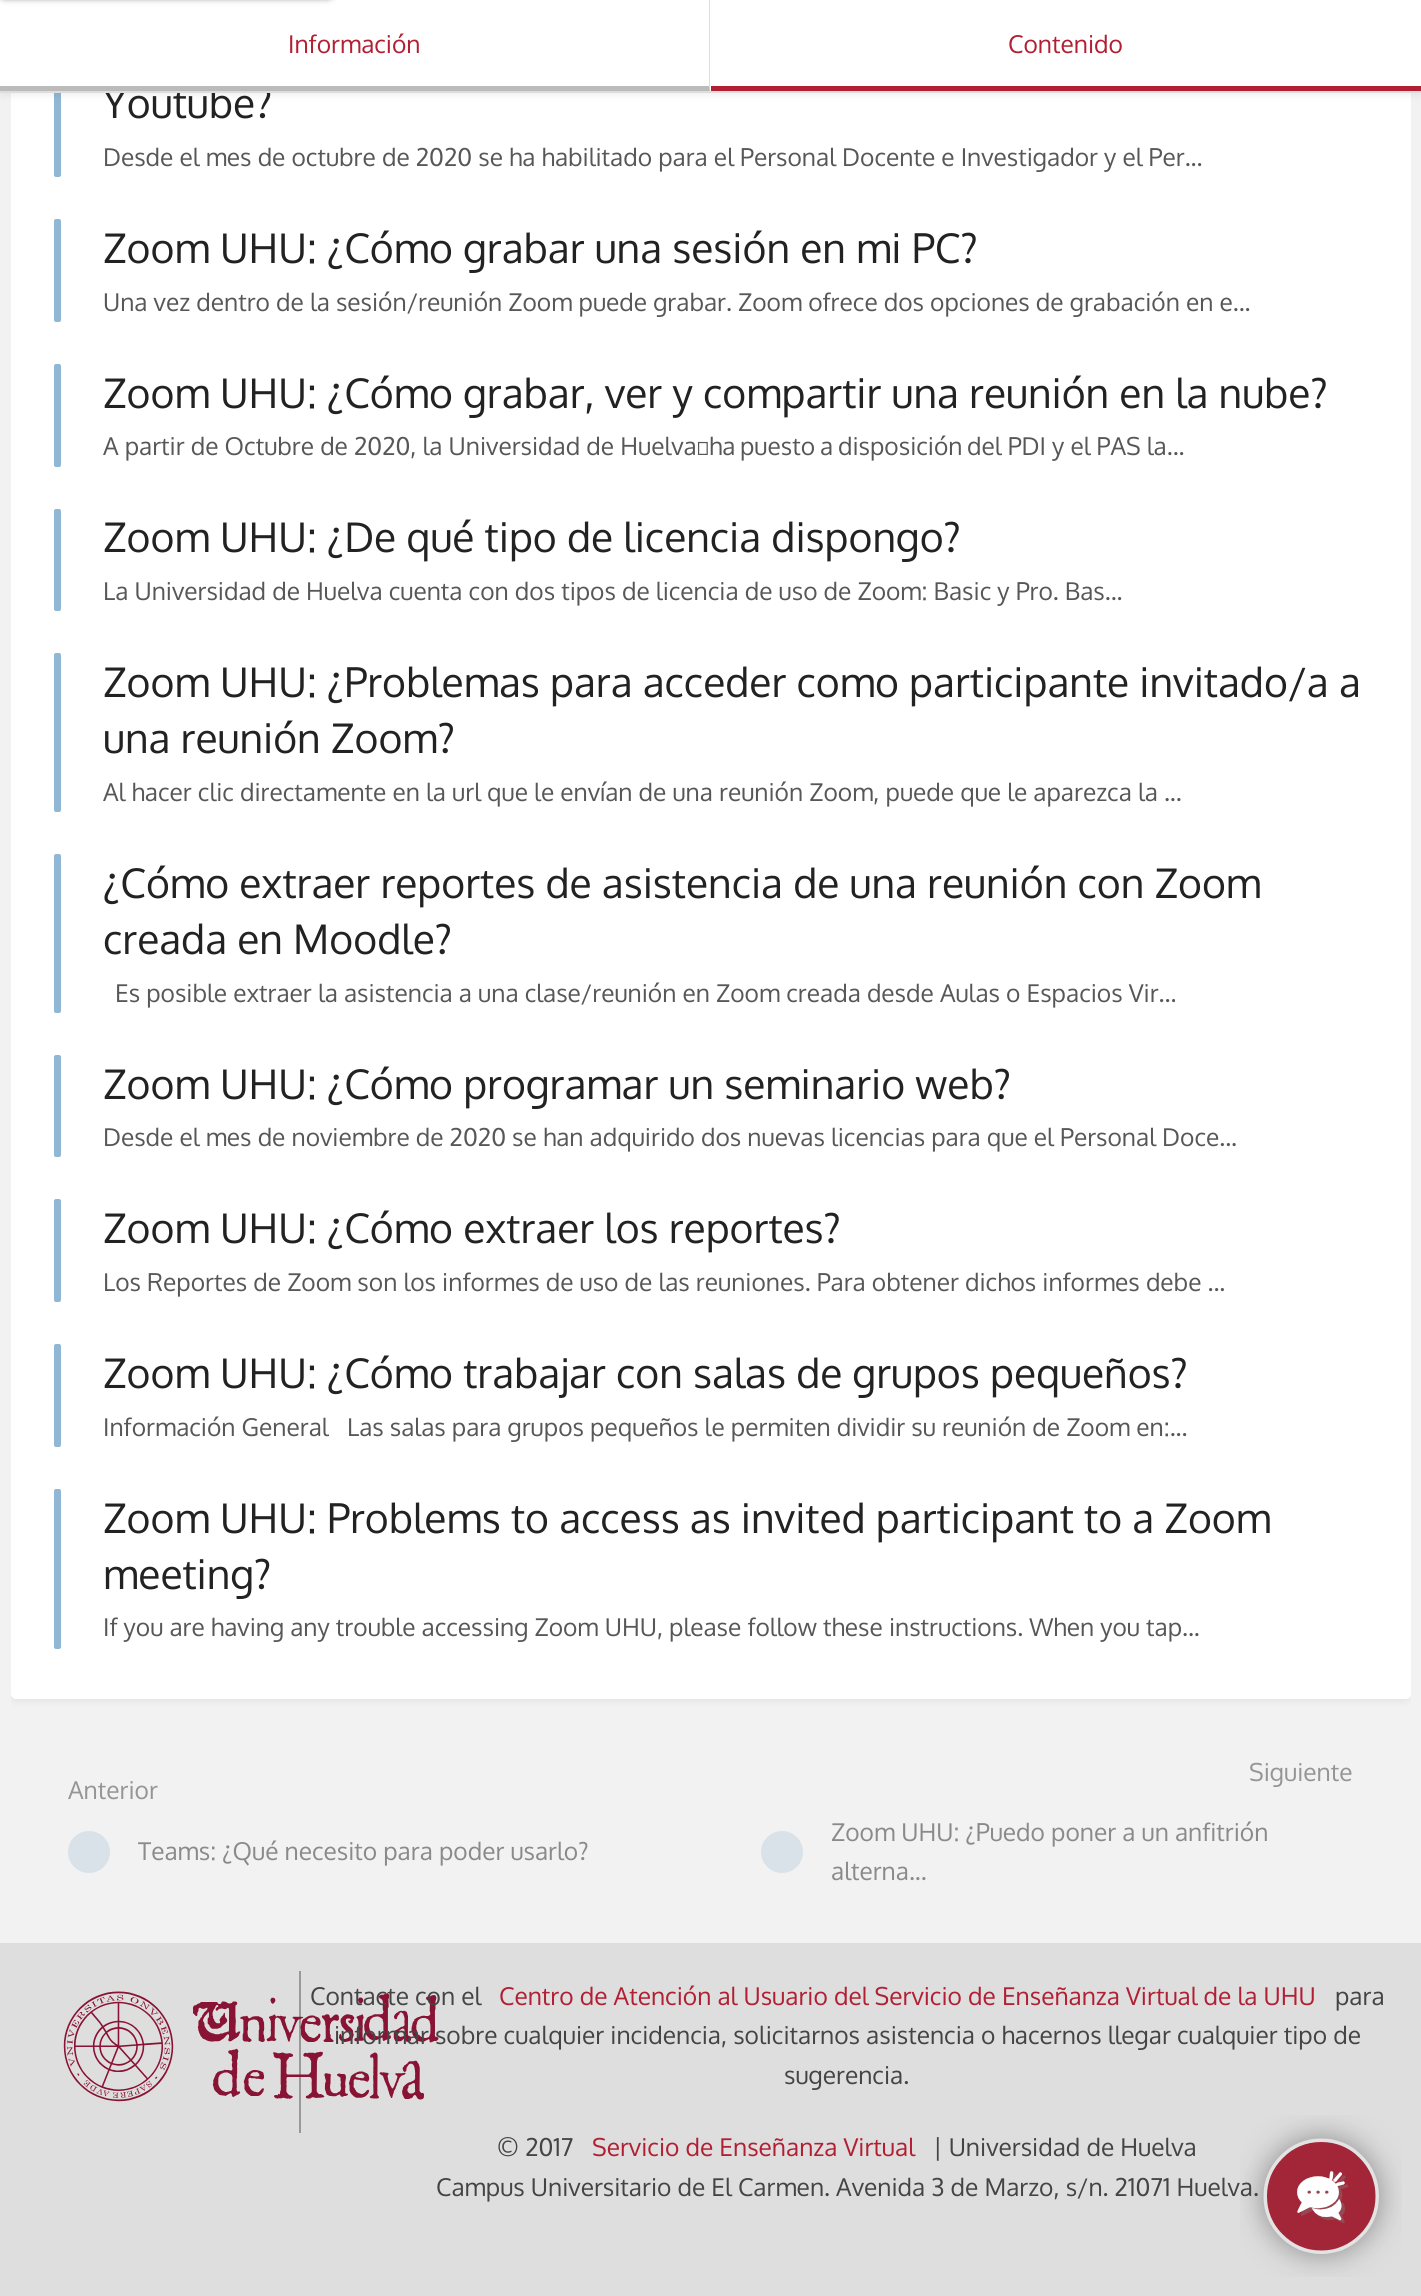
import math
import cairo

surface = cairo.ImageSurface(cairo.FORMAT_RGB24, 1421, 2296)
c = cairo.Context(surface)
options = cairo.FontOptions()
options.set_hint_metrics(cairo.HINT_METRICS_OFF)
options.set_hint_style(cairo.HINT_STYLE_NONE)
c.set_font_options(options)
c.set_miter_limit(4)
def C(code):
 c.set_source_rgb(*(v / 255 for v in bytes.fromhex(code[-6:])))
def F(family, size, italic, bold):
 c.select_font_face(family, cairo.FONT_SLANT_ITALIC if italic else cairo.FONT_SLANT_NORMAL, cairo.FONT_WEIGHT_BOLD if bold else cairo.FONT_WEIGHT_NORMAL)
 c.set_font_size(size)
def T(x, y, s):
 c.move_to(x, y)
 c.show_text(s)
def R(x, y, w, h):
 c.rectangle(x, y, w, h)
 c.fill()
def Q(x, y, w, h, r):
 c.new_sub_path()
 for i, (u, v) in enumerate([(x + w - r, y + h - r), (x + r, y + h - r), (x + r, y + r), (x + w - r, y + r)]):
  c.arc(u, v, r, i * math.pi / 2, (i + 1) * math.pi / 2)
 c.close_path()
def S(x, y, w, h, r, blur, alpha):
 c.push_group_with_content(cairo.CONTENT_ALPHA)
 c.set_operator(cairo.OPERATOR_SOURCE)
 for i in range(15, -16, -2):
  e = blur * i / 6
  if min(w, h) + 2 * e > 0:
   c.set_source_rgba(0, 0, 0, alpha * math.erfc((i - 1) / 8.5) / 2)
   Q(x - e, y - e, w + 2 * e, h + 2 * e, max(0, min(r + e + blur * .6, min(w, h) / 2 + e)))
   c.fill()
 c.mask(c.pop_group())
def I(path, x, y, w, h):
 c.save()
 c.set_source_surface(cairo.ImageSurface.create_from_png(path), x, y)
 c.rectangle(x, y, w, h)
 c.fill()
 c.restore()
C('f2f2f2')
c.paint()
c.save()
c.rectangle(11,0,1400,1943)
c.clip()
C('000000')
S(12,-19,1397,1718,4,5,.1)
c.restore()
C('ffffff')
Q(11,-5,1400,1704,5)
c.fill()
C('90b7d3')
Q(54,19,7,158,2)
c.fill()
C('000000')
S(2,4,1417,89,0,5,.1)
F('Oxygen',40.8,0,0)
C('222222')
T(103,118,'Youtube?')
C('ffffff')
R(0,0,1421,91)
C('000000')
S(-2,-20,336,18,9,3.5,.5)
C('dddddd')
R(0,91,1421,2)
c.new_path()
c.move_to(710,0)
c.line_to(710,91)
c.line_to(709,86)
c.line_to(709,0)
c.close_path()
c.fill()
C('bbbbbb')
c.new_path()
c.move_to(710,91)
c.line_to(0,91)
c.line_to(0,86)
c.line_to(709,86)
c.close_path()
c.fill()
F('Oxygen',24.5,0,0)
C('b11f33')
T(288,53,'Información')
R(711,86,710,5)
T(1008,53,'Contenido')
C('575757')
T(103,166,'Desde el mes de octubre de 2020 se ha habilitado para el Personal Docente e Investigador y el Per...')
C('90b7d3')
Q(54,219,7,103,2)
c.fill()
F('Oxygen',40.8,0,0)
C('222222')
T(103,263,'Zoom UHU: ¿Cómo grabar una sesión en mi PC?')
F('Oxygen',24.5,0,0)
C('575757')
T(103,311,'Una vez dentro de la sesión/reunión Zoom puede grabar. Zoom ofrece dos opciones de grabación en e...')
C('90b7d3')
Q(54,364,7,103,2)
c.fill()
F('Oxygen',40.8,0,0)
C('222222')
T(103,408,'Zoom UHU: ¿Cómo grabar, ver y compartir una reunión en la nube?')
F('Oxygen',24.5,0,0)
C('575757')
T(103,455,'A partir de Octubre de 2020, la Universidad de Huelva ha')
T(740,455,'puesto')
T(820,455,'a')
T(838,455,'disposición')
T(967,455,'del PDI y el PAS la...')
C('90b7d3')
Q(54,509,7,102,2)
c.fill()
F('Oxygen',40.8,0,0)
C('222222')
T(103,552,'Zoom UHU: ¿De qué tipo de licencia dispongo?')
F('Oxygen',24.5,0,0)
C('575757')
T(103,600,'La Universidad de Huelva cuenta con dos tipos de licencia de uso de Zoom: Basic y Pro. Bas...')
C('90b7d3')
Q(54,653,7,159,2)
c.fill()
F('Oxygen',40.8,0,0)
C('222222')
T(103,697,'Zoom UHU: ¿Problemas para acceder como participante invitado/a a')
T(103,753,'una reunión Zoom?')
F('Oxygen',24.5,0,0)
C('575757')
T(103,801,'Al hacer clic directamente en la url que le envían de una reunión Zoom, puede que le aparezca la ...')
C('90b7d3')
Q(54,854,7,159,2)
c.fill()
F('Oxygen',40.8,0,0)
C('222222')
T(103,898,'¿Cómo extraer reportes de asistencia de una reunión con Zoom')
T(103,954,'creada en Moodle?')
F('Oxygen',24.5,0,0)
C('575757')
T(115,1002,'Es posible extraer la asistencia a una clase/reunión en Zoom creada desde Aulas o Espacios Vir...')
C('90b7d3')
Q(54,1055,7,102,2)
c.fill()
F('Oxygen',40.8,0,0)
C('222222')
T(103,1099,'Zoom UHU: ¿Cómo programar un seminario web?')
F('Oxygen',24.5,0,0)
C('575757')
T(103,1146,'Desde el mes de noviembre de 2020 se han adquirido dos nuevas licencias para que el Personal Doce...')
C('90b7d3')
Q(54,1199,7,103,2)
c.fill()
F('Oxygen',40.8,0,0)
C('222222')
T(103,1243,'Zoom UHU: ¿Cómo extraer los reportes?')
F('Oxygen',24.5,0,0)
C('575757')
T(103,1291,'Los Reportes de Zoom son los informes de uso de las reuniones. Para obtener dichos informes debe ...')
C('90b7d3')
Q(54,1344,7,103,2)
c.fill()
F('Oxygen',40.8,0,0)
C('222222')
T(103,1388,'Zoom UHU: ¿Cómo trabajar con salas de grupos pequeños?')
F('Oxygen',24.5,0,0)
C('575757')
T(103,1436,'Información General   Las salas para grupos pequeños le permiten dividir su reunión de Zoom en:...')
C('90b7d3')
Q(54,1489,7,160,2)
c.fill()
F('Oxygen',40.8,0,0)
C('222222')
T(103,1533,'Zoom UHU: Problems to access as invited participant to a Zoom')
T(103,1589,'meeting?')
F('Oxygen',24.5,0,0)
C('575757')
T(103,1636,'If you are having any trouble accessing Zoom UHU, please follow these instructions. When you tap...')
C('959595')
T(68,1799,'Anterior')
C('d9e2e9')
c.new_path()
c.arc(89,1852,21,0,2 * math.pi)
c.fill()
C('8a8a8a')
T(138,1860,'Teams: ¿Qué necesito para poder usarlo?')
C('959595')
T(1249,1781,'Siguiente')
C('d9e2e9')
c.new_path()
c.arc(782,1852,21,0,2 * math.pi)
c.fill()
C('8a8a8a')
T(831,1841,'Zoom UHU: ¿Puedo poner a un anfitrión')
T(831,1880,'alterna...')
C('dedede')
R(0,1943,1421,353)
C('999999')
R(299,1971,2,162)
I('1.png',63,1991,376,111)
C('444444')
T(310,2005,'Contacte con el')
C('b11f33')
T(499,2005,'Centro de Atención al Usuario del Servicio de Enseñanza Virtual de la UHU')
C('444444')
T(1335,2005,'para')
T(334,2044,'informar sobre cualquier incidencia, solicitarnos asistencia o hacernos llegar cualquier tipo de')
T(784,2084,'sugerencia.')
T(497,2156,'© 2017')
C('b11f33')
T(592,2156,'Servicio de Enseñanza Virtual')
C('444444')
T(933,2156,'| Universidad de Huelva')
T(436,2196,'Campus Universitario de El Carmen. Avenida 3 de Marzo, s/n. 21071 Huelva.')
I('2.png',1240,2115,162,162)
surface.write_to_png('o.png')
